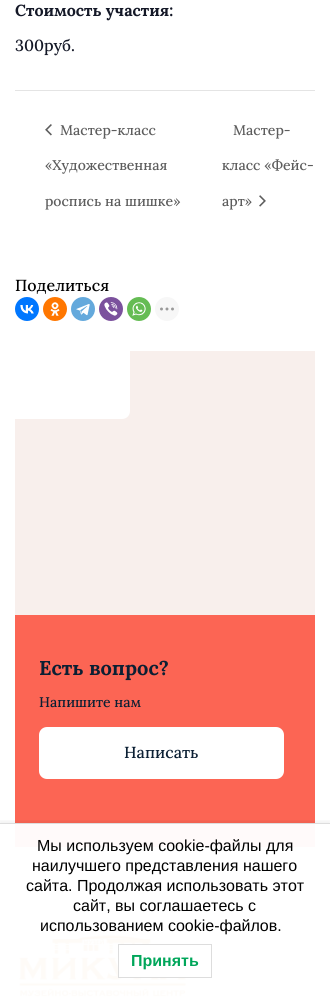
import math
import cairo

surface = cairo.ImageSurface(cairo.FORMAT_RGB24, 330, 998)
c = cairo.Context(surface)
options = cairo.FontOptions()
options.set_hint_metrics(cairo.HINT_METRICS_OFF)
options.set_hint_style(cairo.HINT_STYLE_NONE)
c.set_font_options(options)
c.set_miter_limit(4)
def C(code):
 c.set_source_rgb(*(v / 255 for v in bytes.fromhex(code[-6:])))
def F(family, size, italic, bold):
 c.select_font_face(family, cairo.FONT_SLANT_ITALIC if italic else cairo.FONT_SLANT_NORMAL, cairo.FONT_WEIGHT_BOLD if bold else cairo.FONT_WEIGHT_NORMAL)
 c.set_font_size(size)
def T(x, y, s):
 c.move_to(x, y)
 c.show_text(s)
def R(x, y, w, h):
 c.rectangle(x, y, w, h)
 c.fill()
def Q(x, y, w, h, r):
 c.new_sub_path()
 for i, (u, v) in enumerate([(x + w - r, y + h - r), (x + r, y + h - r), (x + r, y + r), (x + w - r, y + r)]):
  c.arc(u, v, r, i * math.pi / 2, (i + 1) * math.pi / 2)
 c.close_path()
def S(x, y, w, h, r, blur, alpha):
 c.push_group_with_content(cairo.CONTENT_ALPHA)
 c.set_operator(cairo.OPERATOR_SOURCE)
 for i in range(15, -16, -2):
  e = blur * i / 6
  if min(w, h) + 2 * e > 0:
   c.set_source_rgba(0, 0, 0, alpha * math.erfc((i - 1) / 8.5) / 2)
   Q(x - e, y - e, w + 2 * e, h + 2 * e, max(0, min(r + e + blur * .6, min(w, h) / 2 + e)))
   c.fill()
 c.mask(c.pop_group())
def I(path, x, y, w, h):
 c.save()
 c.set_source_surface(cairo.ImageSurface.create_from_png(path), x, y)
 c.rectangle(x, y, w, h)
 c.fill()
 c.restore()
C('ffffff')
c.paint()
F('Lora',16,0,1)
C('141827')
T(15,16,'Стоимость участия:')
F('Lora Medium',16,0,0)
T(15,51,'300руб.')
C('e4e4e4')
R(15,90,300,1)
I('1.png',45,124,7,12)
F('Lora Medium',14,0,0)
C('5d5d5d')
T(60,135,'Мастер-класс')
T(45,170,'«Художественная')
T(45,206,'роспись на шишке»')
T(233,135,'Мастер-')
T(222,170,'класс «Фейс-')
T(222,206,'арт»')
I('2.png',259,195,7,12)
F('Lora Medium',16,0,0)
C('000000')
T(15,291,'Поделиться')
C('0077ff')
c.new_path()
c.arc(27,309,12,0,2 * math.pi)
c.fill()
I('3.png',20,305,14,9)
C('ff7700')
c.arc(55,309,12,0,2 * math.pi)
c.fill()
I('4.png',50,302,10,14)
C('64a9dc')
c.arc(83,309,12,0,2 * math.pi)
c.fill()
I('5.png',76,304,14,12)
C('7b519d')
c.arc(111,309,12,0,2 * math.pi)
c.fill()
I('6.png',104,302,14,14)
C('65bc54')
c.arc(139,309,12,0,2 * math.pi)
c.fill()
I('7.png',132,302,14,14)
C('f7f7f7')
c.arc(167,309,12,0,2 * math.pi)
c.fill()
I('8.png',160,307,14,4)
C('fc6554')
R(15,615,300,208)
C('fffafa')
R(15,824,300,23)
C('f8efec')
R(15,351,300,264)
C('ffffff')
c.new_path()
c.move_to(15,351)
c.line_to(130,351)
c.line_to(130,411)
c.curve_to(130,415.5,126.5,419,122,419)
c.line_to(15,419)
c.close_path()
c.fill()
F('Lora',20,0,1)
C('0b1f33')
T(39,675,'Есть вопрос?')
F('Lora Medium',14,0,0)
T(39,707,'Напишите нам')
C('ffffff')
Q(39,727,245,52,8)
c.fill()
F('Lora Medium',16,0,0)
C('0b1f33')
T(124,758,'Написать')
I('9.png',15,932,175,66)
c.save()
c.rectangle(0,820,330,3)
c.clip()
C('000000')
S(0,823,330,175,0,4,.1)
c.restore()
C('dddddd')
R(0,823,330,1)
F('Liberation Sans',16,0,0)
C('000000')
T(37,851,'Мы используем cookie-файлы для')
T(32,871,'наилучшего представления нашего')
T(26,891,'сайта. Продолжая использовать этот')
T(73,911,'сайт, вы соглашаетесь с')
T(40,931,'использованием cookie-файлов.')
C('ffffff')
R(119,945,65,32)
c.rectangle(118.5,944.5,93,33)
C('dddddd')
c.set_line_width(1)
c.stroke()
F('Liberation Sans',16,0,1)
C('00a65a')
T(131,966,'Принять')
surface.write_to_png('o.png')
